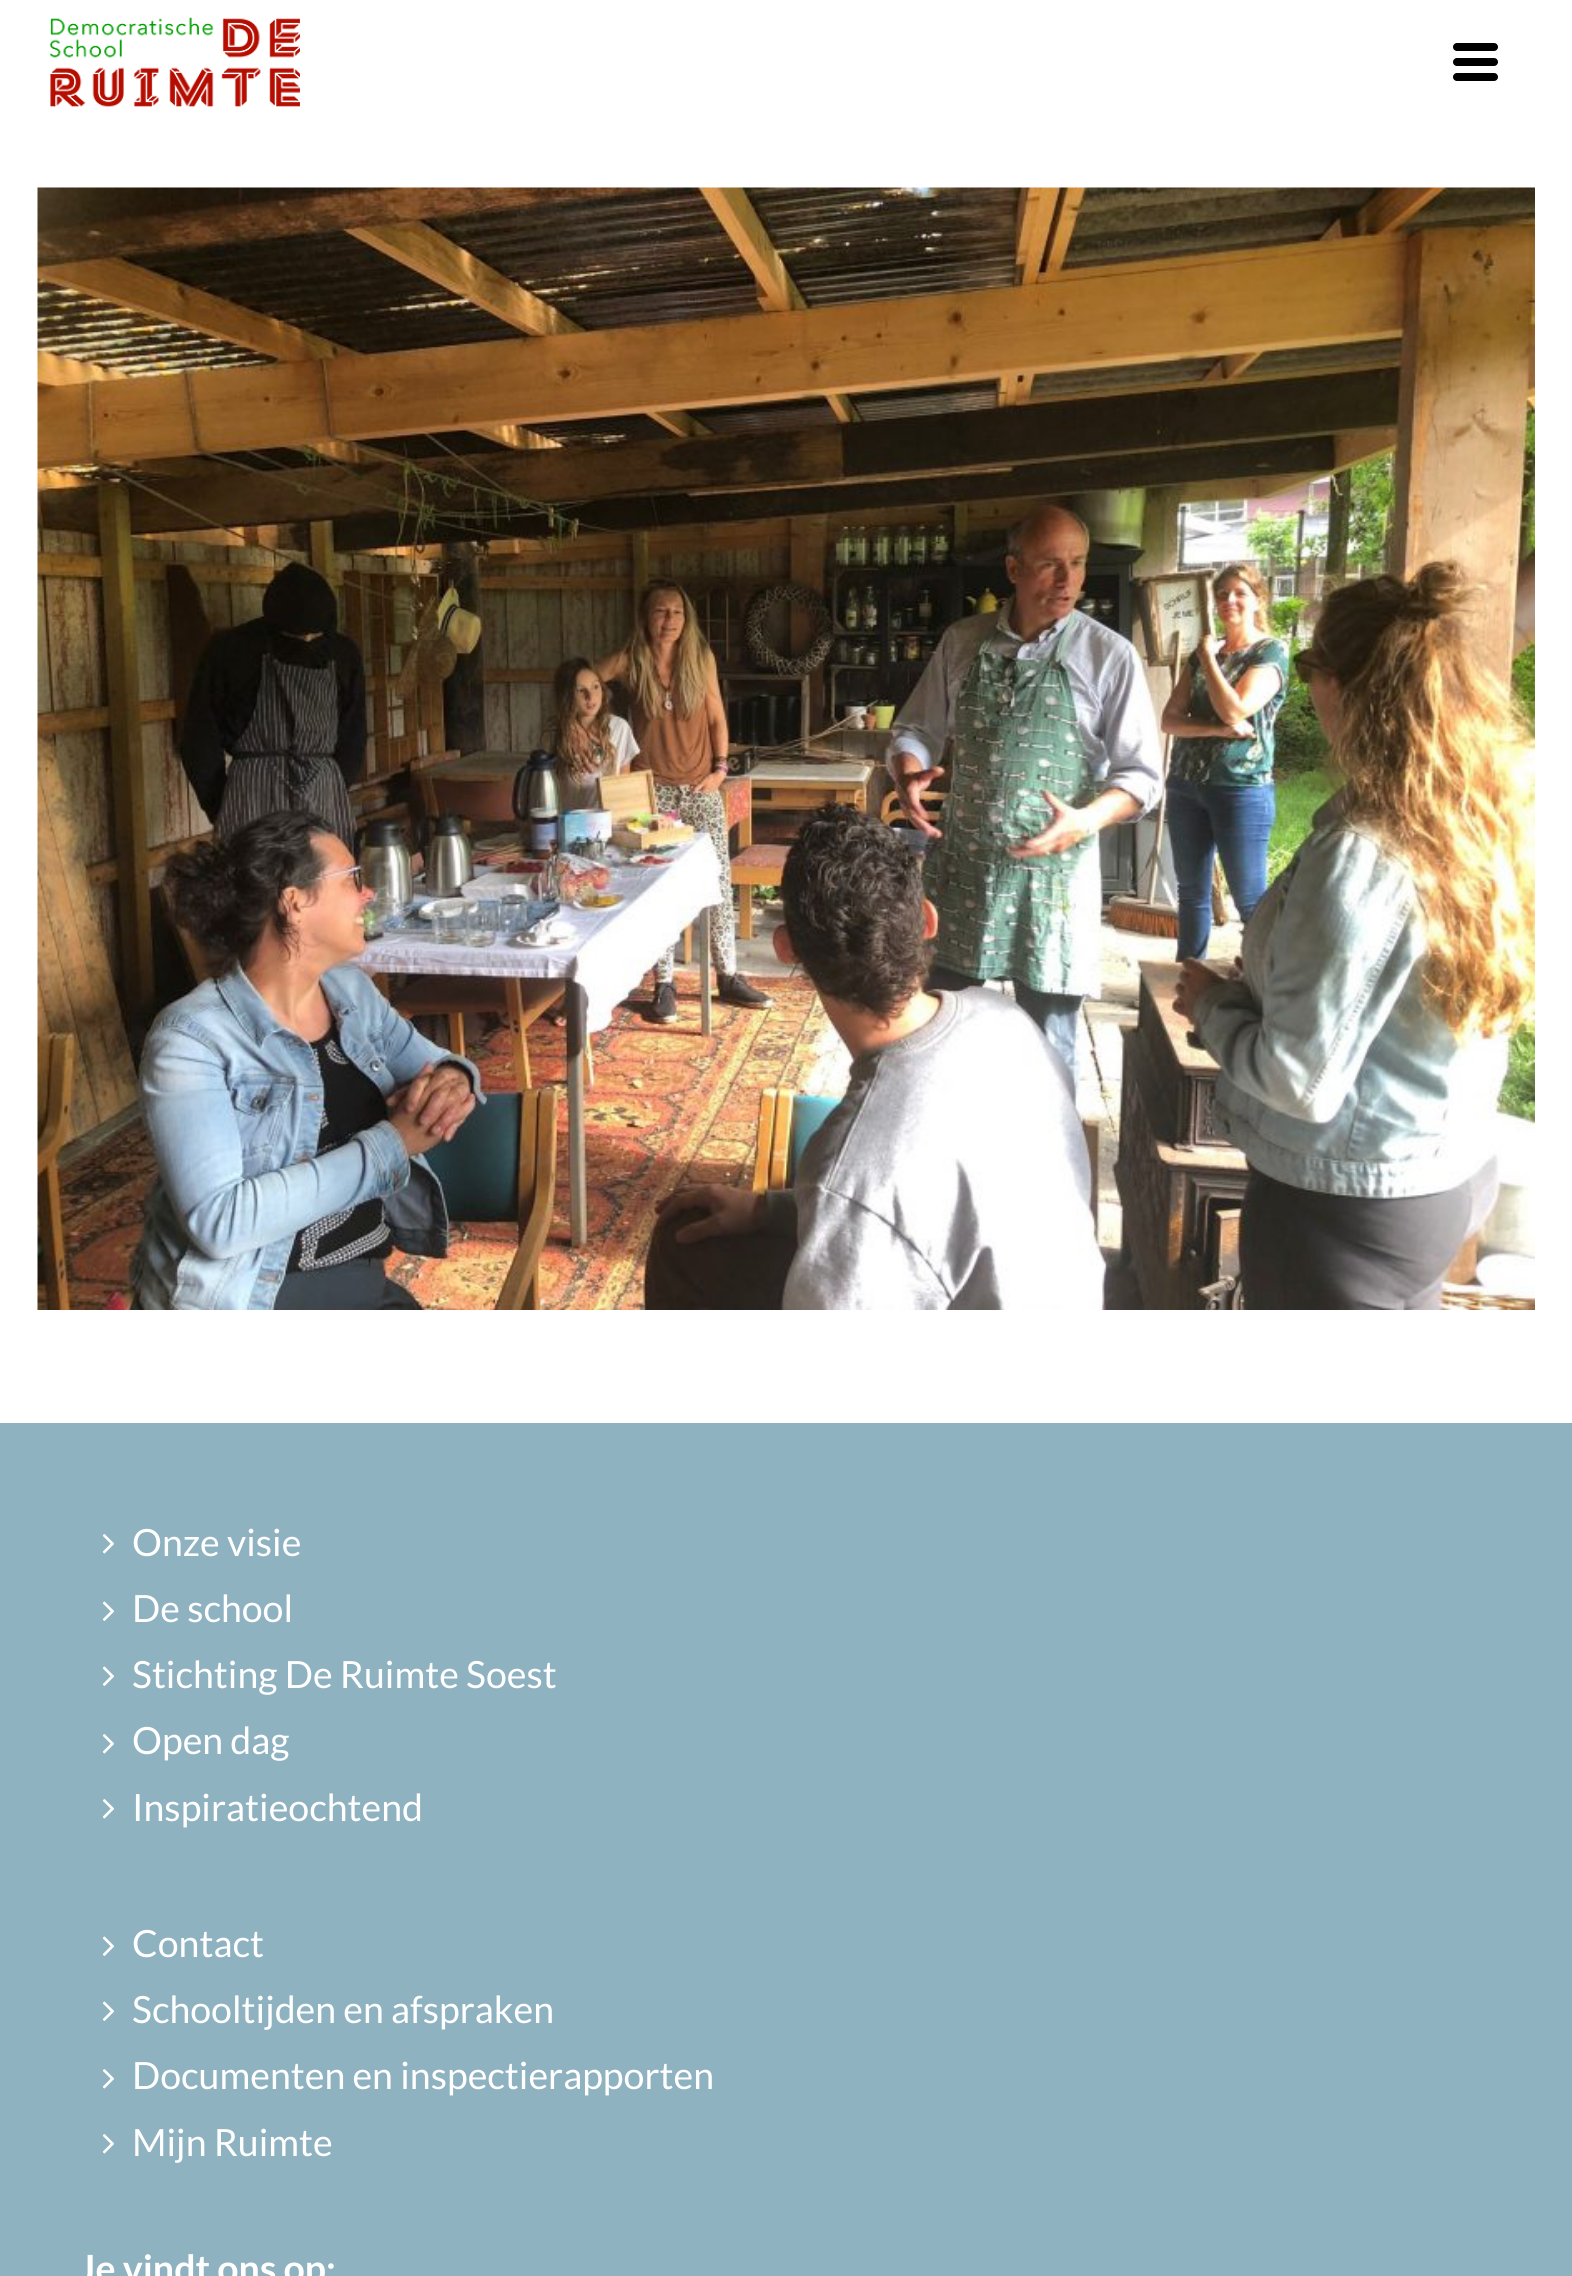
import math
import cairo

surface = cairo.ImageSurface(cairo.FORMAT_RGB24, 1572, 2276)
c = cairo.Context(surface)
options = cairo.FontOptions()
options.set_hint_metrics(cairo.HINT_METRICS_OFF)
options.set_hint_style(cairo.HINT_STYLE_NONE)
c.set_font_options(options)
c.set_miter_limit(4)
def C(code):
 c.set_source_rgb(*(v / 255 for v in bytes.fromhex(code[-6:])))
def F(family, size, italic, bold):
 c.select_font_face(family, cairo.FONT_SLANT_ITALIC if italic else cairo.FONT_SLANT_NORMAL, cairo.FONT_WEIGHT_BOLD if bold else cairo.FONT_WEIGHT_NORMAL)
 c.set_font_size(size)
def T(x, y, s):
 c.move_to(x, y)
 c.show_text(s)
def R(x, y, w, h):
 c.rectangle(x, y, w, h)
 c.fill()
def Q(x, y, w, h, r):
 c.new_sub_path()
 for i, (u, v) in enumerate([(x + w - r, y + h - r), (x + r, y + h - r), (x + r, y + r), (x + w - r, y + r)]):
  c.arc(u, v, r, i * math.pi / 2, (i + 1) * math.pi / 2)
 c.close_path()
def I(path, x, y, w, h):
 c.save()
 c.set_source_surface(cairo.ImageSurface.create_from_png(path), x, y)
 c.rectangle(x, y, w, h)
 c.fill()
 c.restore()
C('ffffff')
c.paint()
I('1.png',50,17,250,90)
C('000000')
Q(1453,43,45,8,4)
c.fill()
Q(1453,58,45,8,4)
c.fill()
Q(1453,73,45,8,4)
c.fill()
I('2.png',37,187,1498,1123)
C('8fb2c1')
R(0,1423,1572,853)
I('3.png',103,1534,11,20)
F('Lato',37.5,0,0)
C('ffffff')
T(132,1556,'Onze visie')
I('4.png',103,1601,11,20)
T(132,1622,'De school')
I('4.png',103,1666,11,20)
T(132,1688,'Stichting De Ruimte Soest')
I('3.png',103,1734,11,20)
T(132,1754,'Open dag')
I('3.png',103,1799,11,20)
T(132,1821,'Inspiratieochtend')
I('4.png',103,1936,11,20)
T(132,1957,'Contact')
I('4.png',103,2001,11,20)
T(132,2023,'Schooltijden en afspraken')
I('3.png',103,2069,11,20)
T(132,2089,'Documenten en inspectierapporten')
I('3.png',103,2134,11,20)
T(132,2156,'Mijn Ruimte')
F('Lato',37.5,0,1)
T(79,2282,'Je vindt ons op:')
surface.write_to_png('o.png')
